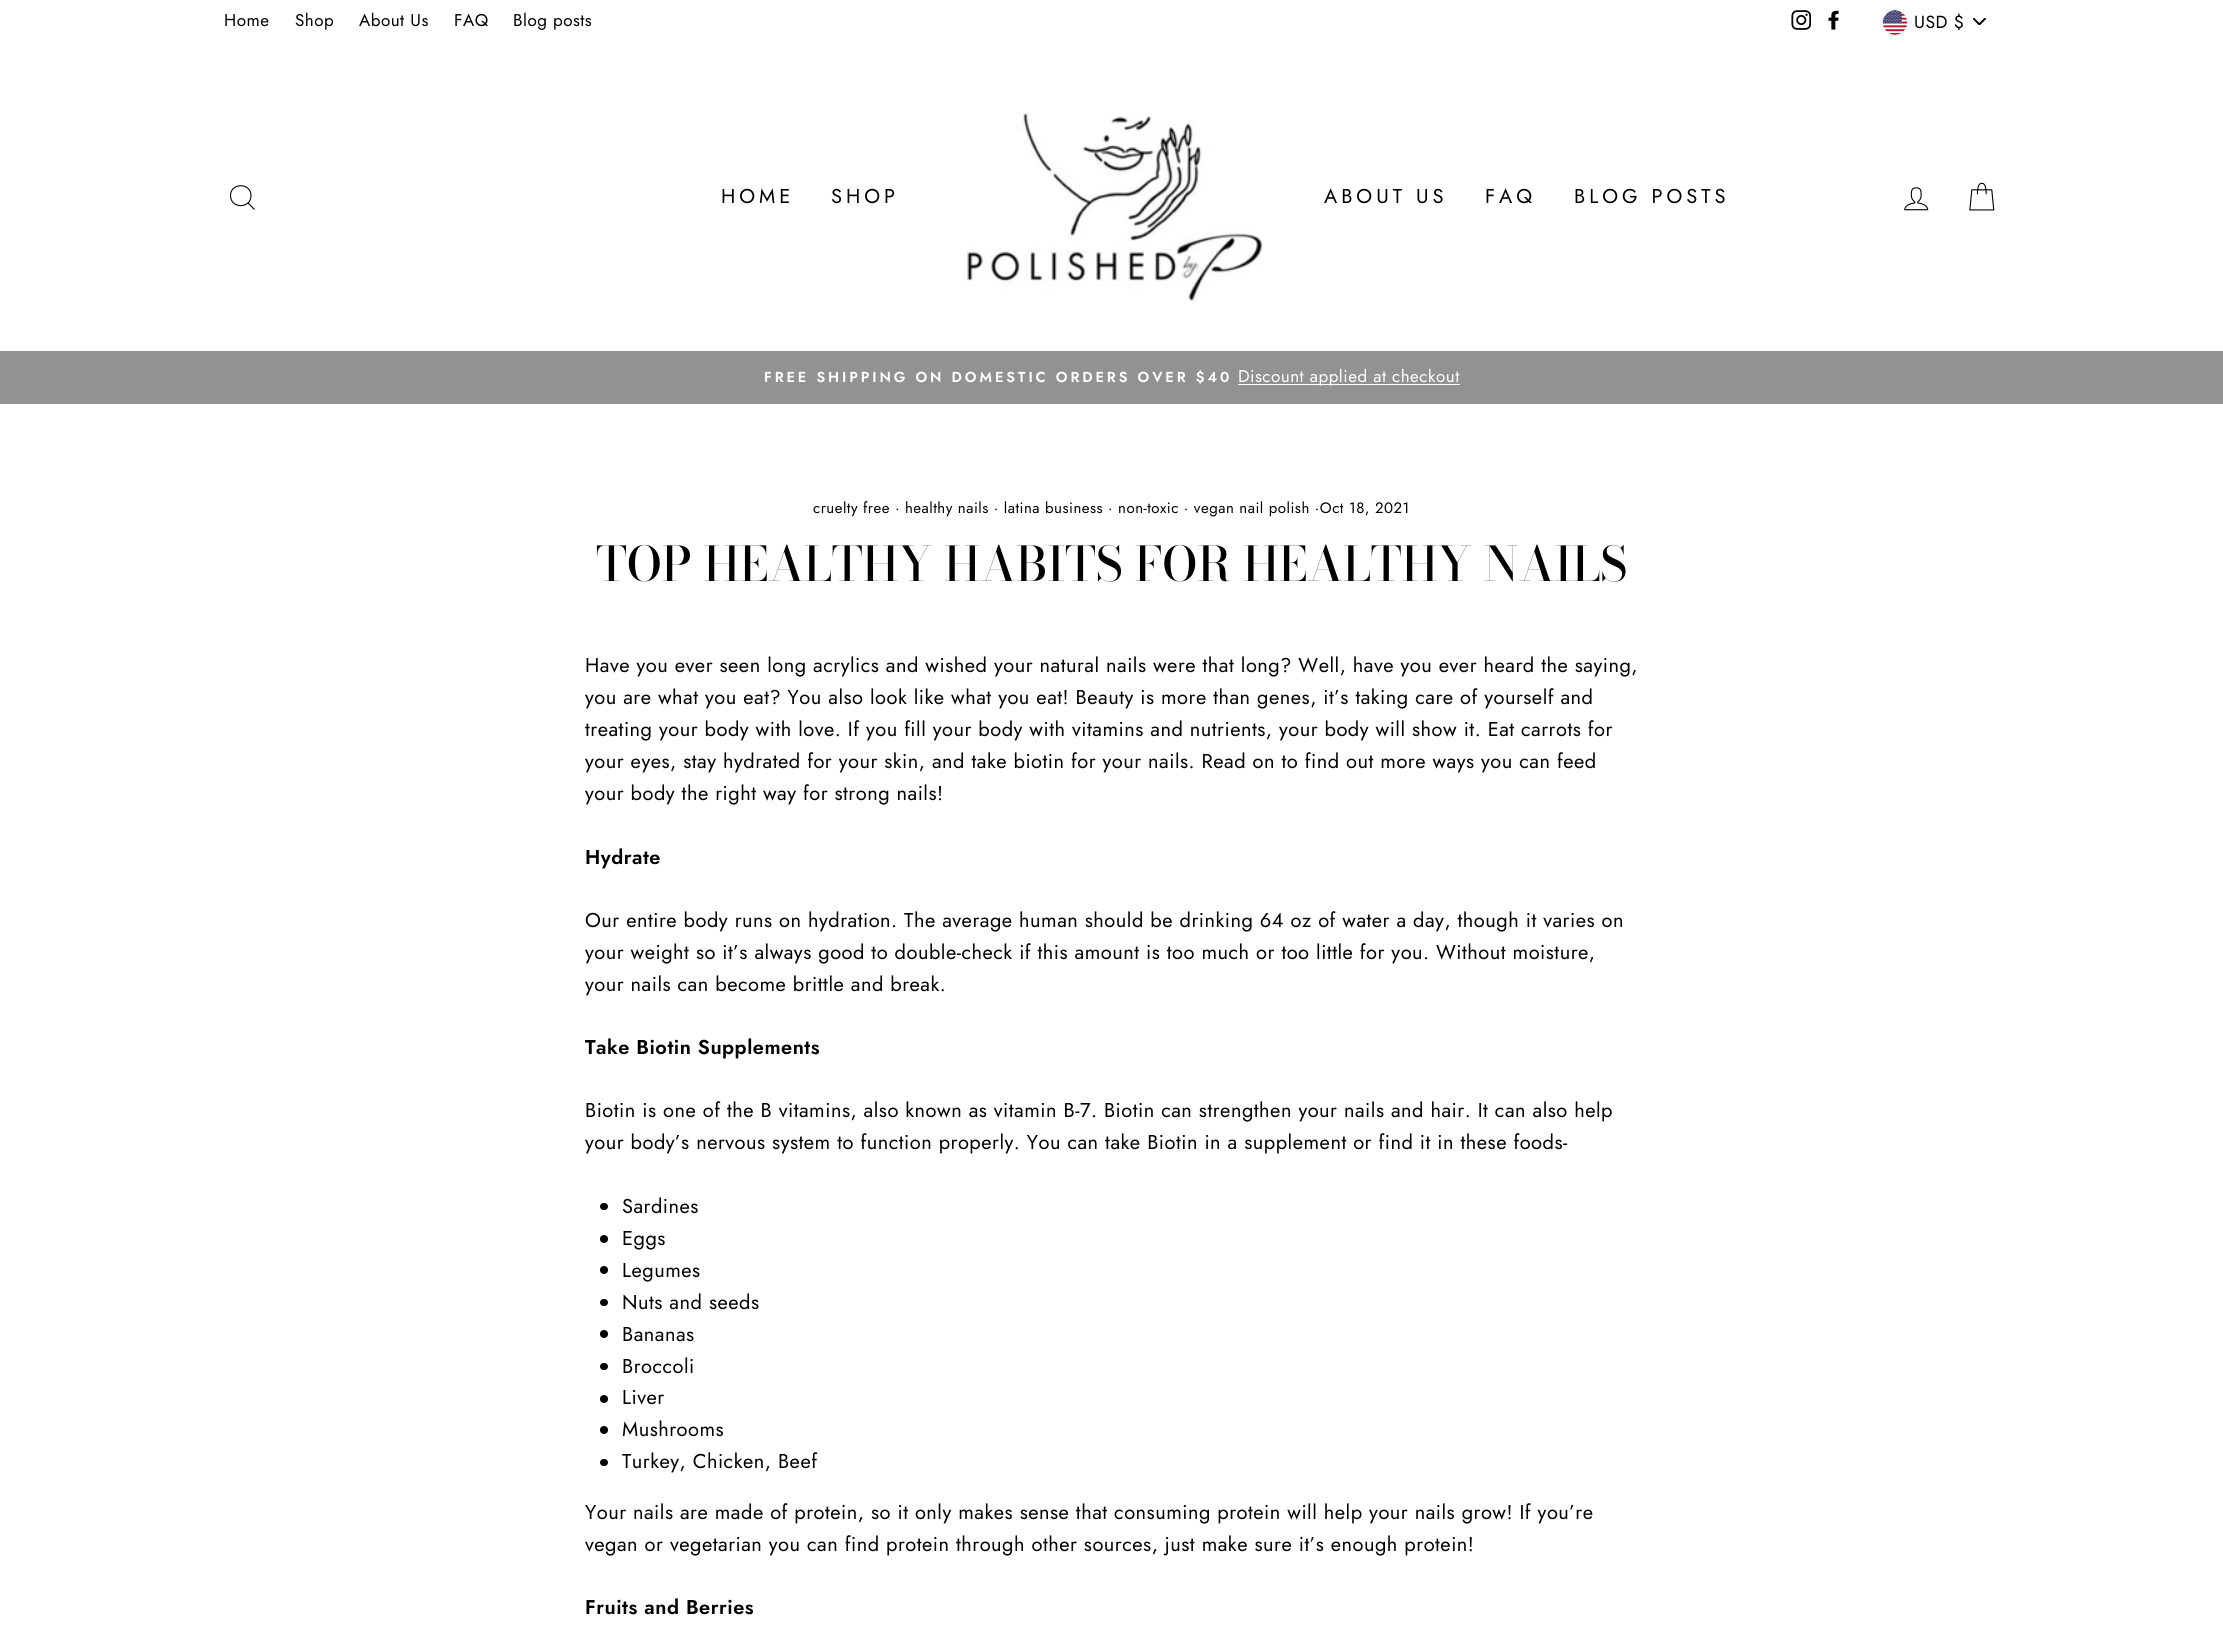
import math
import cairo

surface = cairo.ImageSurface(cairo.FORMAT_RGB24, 2223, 1647)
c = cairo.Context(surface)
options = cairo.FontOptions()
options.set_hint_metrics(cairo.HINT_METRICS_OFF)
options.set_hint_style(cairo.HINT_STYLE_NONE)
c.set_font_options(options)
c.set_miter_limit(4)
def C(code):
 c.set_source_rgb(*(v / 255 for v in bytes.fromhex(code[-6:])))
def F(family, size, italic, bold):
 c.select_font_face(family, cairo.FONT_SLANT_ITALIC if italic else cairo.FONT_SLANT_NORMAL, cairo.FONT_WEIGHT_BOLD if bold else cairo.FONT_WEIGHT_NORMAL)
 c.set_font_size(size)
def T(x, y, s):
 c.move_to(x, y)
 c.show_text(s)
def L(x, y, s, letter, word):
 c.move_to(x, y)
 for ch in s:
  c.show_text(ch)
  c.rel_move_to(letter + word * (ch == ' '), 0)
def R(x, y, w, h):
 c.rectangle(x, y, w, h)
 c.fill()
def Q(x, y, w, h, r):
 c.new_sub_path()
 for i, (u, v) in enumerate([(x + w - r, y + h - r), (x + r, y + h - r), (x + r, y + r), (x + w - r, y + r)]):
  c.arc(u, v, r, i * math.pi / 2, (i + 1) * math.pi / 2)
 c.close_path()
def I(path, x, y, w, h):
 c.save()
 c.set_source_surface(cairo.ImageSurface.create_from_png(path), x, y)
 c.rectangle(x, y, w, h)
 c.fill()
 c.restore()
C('ffffff')
c.paint()
F('Jost',17,0,0)
C('000000')
L(224,26,'Home',.5,0)
L(295,26,'Shop',.5,0)
L(359,26,'About Us',.5,0)
L(454,26,'FAQ',.5,0)
L(513,26,'Blog posts',.5,0)
I('1.png',1791,10,20,20)
I('2.png',1828,10,11,20)
I('3.png',1973,18,13,7)
I('4.png',1882,10,26,25)
F('Jost',17.5,0,0)
L(1914,28,'USD $',.5,0)
c.new_path()
c.move_to(251,195.5)
c.curve_to(251,209,230.5,209,230.5,195.5)
c.curve_to(230.5,182.5,251,182.5,251,195.5)
c.close_path()
c.move_to(254.5,209.5)
c.line_to(248,203)
c.set_line_width(1.1)
c.stroke()
F('Jost',20,0,0)
L(721,203,'HOME',4,0)
L(831,203,'SHOP',4,0)
I('5.png',966,112,297,192)
L(1324,203,'ABOUT US',4,0)
L(1485,203,'FAQ',4,0)
L(1574,203,'BLOG POSTS',4,0)
I('6.png',1904,187,25,24)
I('7.png',1969,182,26,29)
C('929292')
R(0,351,2223,53)
F('Jost SemiBold',14.45,0,0)
C('ffffff')
L(764,382,'FREE SHIPPING ON DOMESTIC ORDERS OVER $40',2.9,0)
R(1238,384,222,1)
F('Jost',17,0,0)
L(1238,382,'Discount applied at checkout',.5,0)
F('Jost',15,0,0)
C('000000')
L(813,513,'cruelty free · healthy nails · latina business · non-toxic · vegan nail polish ·Oct 18, 2021',.5,0)
F('Bodoni Moda Medium',47.5,0,0)
T(596,581,'TOP HEALTHY HABITS FOR HEALTHY NAILS')
F('Jost',20,0,0)
L(585,672,'Have you ever seen long acrylics and wished your natural nails were that long? Well, have you ever heard the saying,',.5,0)
L(585,704,'you are what you eat? You also look like what you eat! Beauty is more than genes, it’s taking care of yourself and',.5,0)
L(585,736,'treating your body with love. If you fill your body with vitamins and nutrients, your body will show it. Eat carrots for',.5,0)
L(585,768,'your eyes, stay hydrated for your skin, and take biotin for your nails. Read on to find out more ways you can feed',.5,0)
L(585,800,'your body the right way for strong nails!',.5,0)
F('Jost SemiBold',20,0,0)
L(585,864,'Hydrate',.5,0)
F('Jost',20,0,0)
L(585,927,'Our entire body runs on hydration. The average human should be drinking 64 oz of water a day, though it varies on',.5,0)
L(585,959,'your weight so it’s always good to double-check if this amount is too much or too little for you. Without moisture,',.5,0)
L(585,991,'your nails can become brittle and break.',.5,0)
F('Jost SemiBold',20,0,0)
L(585,1054,'Take Biotin Supplements',.5,0)
F('Jost',20,0,0)
L(585,1117,'Biotin is one of the B vitamins, also known as vitamin B-7. Biotin can strengthen your nails and hair. It can also help',.5,0)
L(585,1149,'your body’s nervous system to function properly. You can take Biotin in a supplement or find it in these foods-',.5,0)
Q(600,1203,8,7,3.5)
c.fill()
L(622,1213,'Sardines',.5,0)
c.new_path()
c.arc(604,1239,4,0,2 * math.pi)
c.fill()
L(622,1245,'Eggs',.5,0)
c.new_path()
c.arc(604,1270,4,0,2 * math.pi)
c.fill()
L(622,1277,'Legumes',.5,0)
Q(600,1299,8,7,3.5)
c.fill()
L(622,1309,'Nuts and seeds',.5,0)
c.new_path()
c.arc(604,1334,4,0,2 * math.pi)
c.fill()
L(622,1341,'Bananas',.5,0)
Q(600,1363,8,7,3.5)
c.fill()
L(622,1373,'Broccoli',.5,0)
c.new_path()
c.arc(604,1399,4,0,2 * math.pi)
c.fill()
L(622,1404,'Liver',.5,0)
c.new_path()
c.arc(604,1430,4,0,2 * math.pi)
c.fill()
L(622,1436,'Mushrooms',.5,0)
Q(600,1459,8,7,3.5)
c.fill()
L(622,1468,'Turkey, Chicken, Beef',.5,0)
L(585,1519,'Your nails are made of protein, so it only makes sense that consuming protein will help your nails grow! If you’re',.5,0)
L(585,1551,'vegan or vegetarian you can find protein through other sources, just make sure it’s enough protein!',.5,0)
F('Jost SemiBold',20,0,0)
L(585,1614,'Fruits and Berries',.5,0)
surface.write_to_png('o.png')
